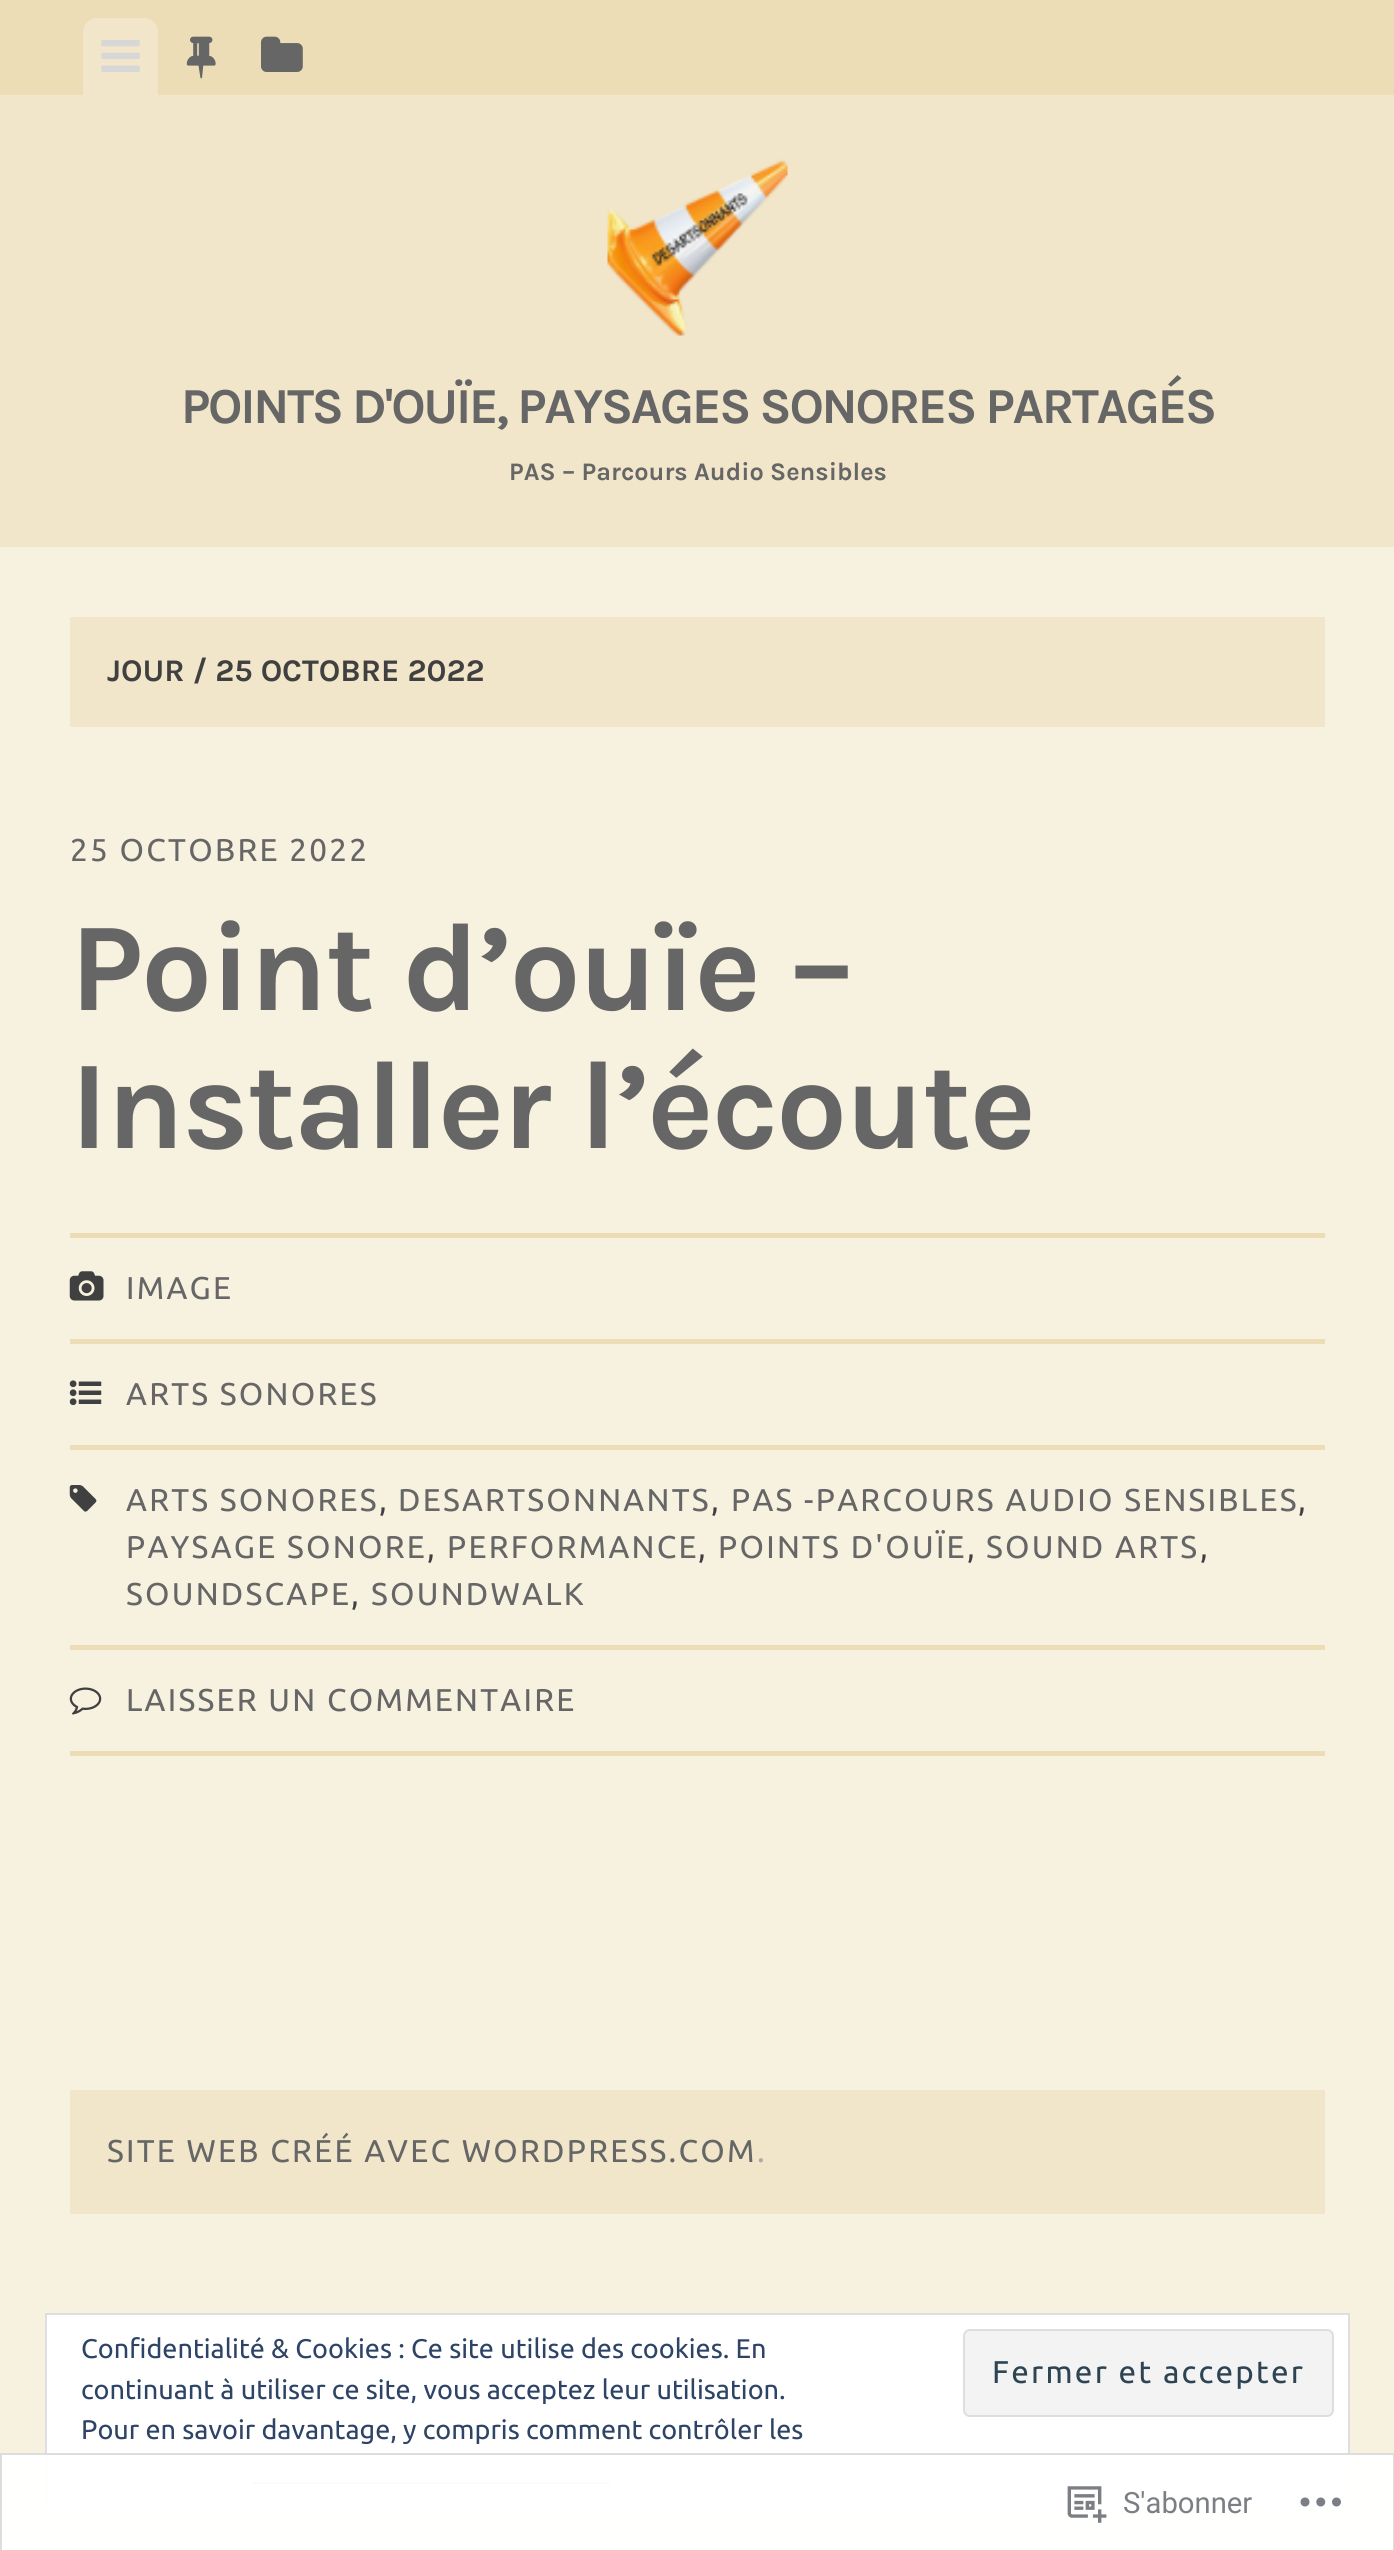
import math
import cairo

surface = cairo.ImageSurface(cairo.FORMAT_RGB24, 1394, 2550)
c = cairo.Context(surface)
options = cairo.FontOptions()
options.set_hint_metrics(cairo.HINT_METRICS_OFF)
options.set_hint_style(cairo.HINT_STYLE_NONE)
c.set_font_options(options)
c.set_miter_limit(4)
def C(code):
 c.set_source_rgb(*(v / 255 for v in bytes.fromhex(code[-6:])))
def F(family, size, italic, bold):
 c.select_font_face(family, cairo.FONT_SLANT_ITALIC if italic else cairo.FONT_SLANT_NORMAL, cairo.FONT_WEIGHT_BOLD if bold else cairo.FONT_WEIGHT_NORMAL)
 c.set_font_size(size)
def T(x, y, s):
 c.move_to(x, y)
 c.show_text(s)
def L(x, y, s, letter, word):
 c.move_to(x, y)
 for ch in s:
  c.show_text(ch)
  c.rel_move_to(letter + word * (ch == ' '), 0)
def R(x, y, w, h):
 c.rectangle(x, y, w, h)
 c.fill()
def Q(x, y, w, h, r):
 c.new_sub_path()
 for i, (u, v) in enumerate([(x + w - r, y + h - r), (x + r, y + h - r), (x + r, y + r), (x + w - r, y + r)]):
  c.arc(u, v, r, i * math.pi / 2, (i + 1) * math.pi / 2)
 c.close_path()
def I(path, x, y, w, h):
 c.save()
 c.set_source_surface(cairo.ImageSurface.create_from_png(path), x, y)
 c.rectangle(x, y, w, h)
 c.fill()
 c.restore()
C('f7f1e0')
c.paint()
C('f1e6ca')
R(0,95,1394,452)
C('ecddb6')
R(0,0,1394,95)
C('f1e6ca')
c.new_path()
c.move_to(97,18)
c.line_to(144,18)
c.curve_to(151.5,18,158,24.5,158,32)
c.line_to(158,95)
c.line_to(83,95)
c.line_to(83,32)
c.curve_to(83,24.5,89.5,18,97,18)
c.close_path()
c.fill()
I('1.png',101,40,39,32)
I('2.png',186,36,30,43)
I('3.png',261,36,42,36)
I('4.png',607,159,181,177)
F('Karla',50.4,0,1)
C('666666')
L(181,423,'POINTS D\'OUÏE, PAYSAGES SONORES PARTAGÉS',-2.25,0)
F('Karla',25.25,0,1)
T(509,480,'PAS – Parcours Audio Sensibles')
C('f1e6ca')
R(70,617,1255,110)
F('Karla',31.5,0,1)
C('404040')
T(107,681,'JOUR / 25 OCTOBRE 2022')
F('Ubuntu',31.5,0,0)
C('666666')
L(70,861,'25 OCTOBRE 2022',2.25,0)
F('Karla',126,0,1)
L(70,1010,'Point d’ouïe –',-2.25,0)
L(70,1148,'Installer l’écoute',-2.25,0)
C('ecddb6')
R(70,1233,1255,5)
R(70,1339,1255,5)
I('5.png',69,1271,35,30)
F('Ubuntu',31.5,0,0)
C('666666')
L(126,1299,'IMAGE',2.25,0)
C('ecddb6')
R(70,1445,1255,5)
I('6.png',69,1380,33,26)
C('666666')
L(126,1405,'ARTS SONORES',2.25,0)
C('ecddb6')
R(70,1645,1255,5)
I('7.png',69,1485,28,27)
C('666666')
L(126,1511,'ARTS SONORES',2.25,0)
C('404040')
L(379,1511,',',2.25,0)
C('666666')
L(398,1511,'DESARTSONNANTS',2.25,0)
C('404040')
L(711,1511,',',2.25,0)
C('666666')
L(731,1511,'PAS -PARCOURS AUDIO SENSIBLES',2.25,0)
C('404040')
L(1298,1511,',',2.25,0)
C('666666')
L(126,1558,'PAYSAGE SONORE',2.25,0)
C('404040')
L(427,1558,',',2.25,0)
C('666666')
L(447,1558,'PERFORMANCE',2.25,0)
C('404040')
L(698,1558,',',2.25,0)
C('666666')
L(718,1558,'POINTS D\'OUÏE',2.25,0)
C('404040')
L(967,1558,',',2.25,0)
C('666666')
L(986,1558,'SOUND ARTS',2.25,0)
C('404040')
L(1200,1558,',',2.25,0)
C('666666')
L(126,1605,'SOUNDSCAPE',2.25,0)
C('404040')
L(351,1605,',',2.25,0)
C('666666')
L(371,1605,'SOUNDWALK',2.25,0)
C('ecddb6')
R(70,1751,1255,5)
I('8.png',69,1687,33,28)
C('666666')
L(126,1711,'LAISSER UN COMMENTAIRE',2.25,0)
C('f1e6ca')
R(70,2090,1255,124)
C('666666')
L(107,2162,'SITE WEB CRÉÉ AVEC WORDPRESS.COM',2.25,0)
C('aaaaaa')
L(757,2162,'.',2.25,0)
C('ffffff')
c.rectangle(46,2314,1303,192)
c.fill_preserve()
C('dedede')
c.stroke()
F('Ubuntu',27,0,0)
C('2e4467')
T(81,2358,'Confidentialité & Cookies : Ce site utilise des cookies. En')
T(81,2399,'continuant à utiliser ce site, vous acceptez leur utilisation.')
C('f3f3f3')
Q(964,2330,369,86,6)
c.fill_preserve()
C('dedede')
c.stroke()
F('Ubuntu',31.5,0,0)
C('2e4453')
L(992,2383,'Fermer et accepter',2.25,0)
F('Ubuntu',27,0,0)
C('2e4467')
T(81,2439,'Pour en savoir davantage, y compris comment contrôler les')
R(252,2482,358,2)
c.set_source_rgba(1,1,1,0.98)
c.rectangle(1,2454,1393,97)
c.fill_preserve()
C('dddddf')
c.stroke()
I('9.png',1067,2486,40,37)
F('Roboto',29.25,0,0)
C('7b7f84')
T(1123,2513,'S\'abonner')
I('10.png',1300,2497,41,10)
surface.write_to_png('o.png')
